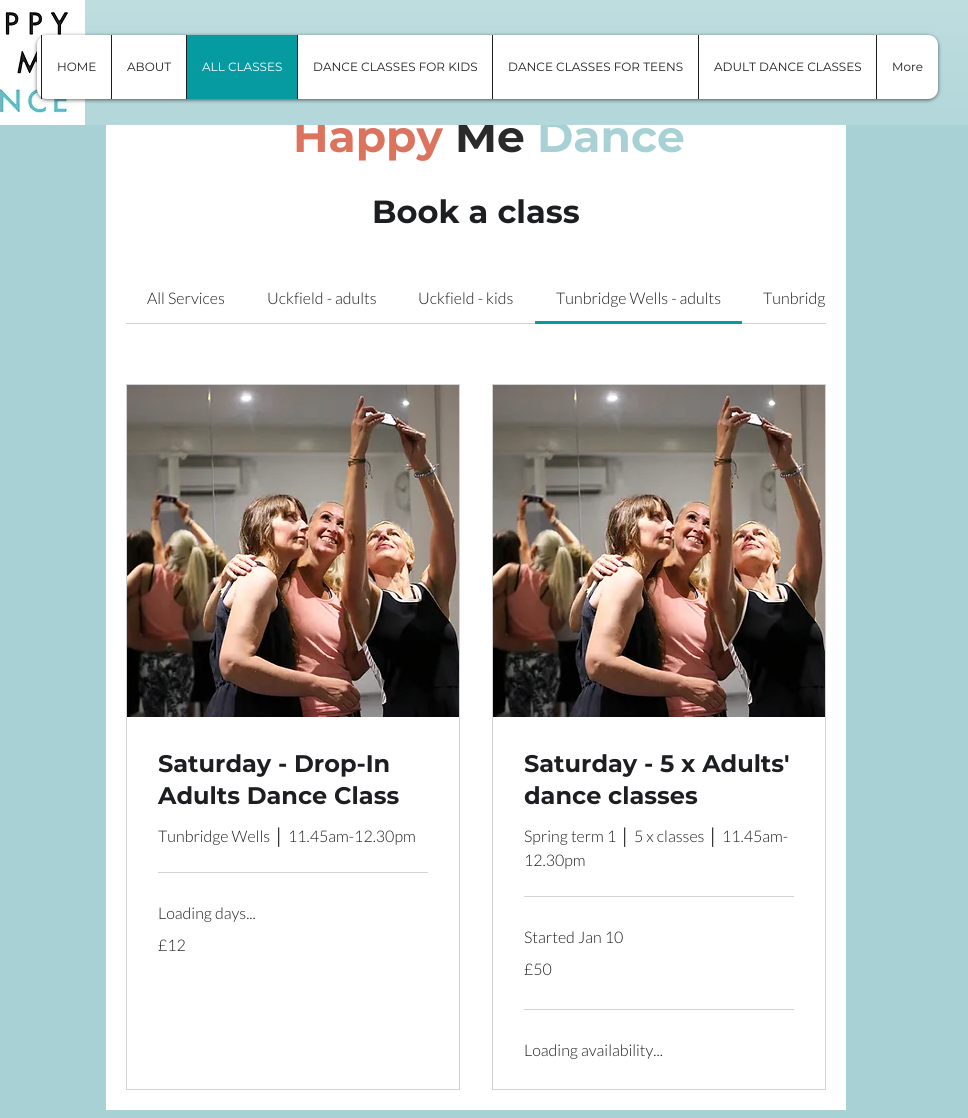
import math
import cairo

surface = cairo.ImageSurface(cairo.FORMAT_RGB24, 968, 1118)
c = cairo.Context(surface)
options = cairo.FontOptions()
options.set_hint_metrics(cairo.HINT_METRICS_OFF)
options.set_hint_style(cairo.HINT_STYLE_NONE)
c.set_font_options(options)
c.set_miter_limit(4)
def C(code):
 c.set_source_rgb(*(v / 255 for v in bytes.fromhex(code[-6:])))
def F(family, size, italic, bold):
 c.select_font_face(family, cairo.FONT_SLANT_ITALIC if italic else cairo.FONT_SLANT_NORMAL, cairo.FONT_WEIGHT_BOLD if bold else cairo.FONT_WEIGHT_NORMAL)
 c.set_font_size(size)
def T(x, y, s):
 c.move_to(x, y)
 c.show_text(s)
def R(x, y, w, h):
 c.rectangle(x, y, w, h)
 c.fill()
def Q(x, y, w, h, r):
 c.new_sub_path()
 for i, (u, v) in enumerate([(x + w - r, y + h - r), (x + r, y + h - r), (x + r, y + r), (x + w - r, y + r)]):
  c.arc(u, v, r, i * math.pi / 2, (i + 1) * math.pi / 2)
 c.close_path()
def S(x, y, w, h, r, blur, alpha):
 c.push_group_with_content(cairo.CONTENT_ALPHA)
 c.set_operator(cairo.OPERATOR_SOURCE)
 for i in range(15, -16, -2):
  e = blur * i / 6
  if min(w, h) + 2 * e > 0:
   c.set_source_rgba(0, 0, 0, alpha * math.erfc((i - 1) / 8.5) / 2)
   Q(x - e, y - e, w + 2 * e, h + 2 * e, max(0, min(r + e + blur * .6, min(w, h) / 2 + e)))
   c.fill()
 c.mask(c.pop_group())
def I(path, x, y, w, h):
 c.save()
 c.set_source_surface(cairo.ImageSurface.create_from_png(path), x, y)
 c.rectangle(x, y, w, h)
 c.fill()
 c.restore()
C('a7d1d4')
c.paint()
C('ffffff')
R(106,125,740,985)
F('Montserrat',44,0,1)
C('db735e')
T(293,152,'Happy')
C('2a2a2a')
T(455,152,'Me')
C('a7d1d4')
R(296,121,198,4)
T(537,152,'Dance')
I('1.png',85,0,883,125)
I('2.png',0,0,85,125)
C('000000')
S(37,36,901,64,10,2,.6)
C('ffffff')
Q(37,35,901,64,10)
c.fill()
C('1d1e21')
R(41,35,1,64)
F('Montserrat',12,0,0)
T(57,71,'HOME')
R(111,35,1,64)
T(127,71,'ABOUT')
C('069aa1')
R(187,35,110,64)
C('1d1e21')
R(186,35,1,64)
C('ffffff')
T(202,71,'ALL CLASSES')
C('1d1e21')
R(297,35,1,64)
T(313,71,'DANCE CLASSES FOR KIDS')
R(492,35,1,64)
T(508,71,'DANCE CLASSES FOR TEENS')
R(698,35,1,64)
T(714,71,'ADULT DANCE CLASSES')
R(876,35,1,64)
T(892,71,'More')
F('Montserrat',32,0,1)
T(372,223,'Book a class')
C('d2d2d3')
R(126,323,409,1)
F('Lato Light',16,0,0)
C('1d1e21')
T(147,304,'All Services')
T(267,304,'Uckfield - adults')
T(418,304,'Uckfield - kids')
C('069aa1')
R(535,321,207,3)
C('1d1e21')
T(556,304,'Tunbridge Wells - adults')
C('d2d2d3')
R(742,323,84,1)
C('1d1e21')
T(763,304,'Tunbridg')
c.rectangle(126.5,384.5,333,705)
C('d2d2d3')
c.set_line_width(1)
c.stroke()
I('3.png',127,385,332,332)
F('Montserrat',24,0,1)
C('1d1e21')
T(158,772,'Saturday - Drop-In')
T(158,804,'Adults Dance Class')
F('Lato Light',16,0,0)
T(158,842,'Tunbridge Wells')
F('Liberation Serif',16,0,0)
T(273,842,'│')
F('Lato Light',16,0,0)
T(288,842,'11.45am-12.30pm')
C('d2d2d3')
R(158,872,270,1)
C('1d1e21')
T(158,919,'Loading days...')
T(158,951,'£12')
c.rectangle(492.5,384.5,333,705)
C('d2d2d3')
c.stroke()
I('3.png',493,385,332,332)
F('Montserrat',24,0,1)
C('1d1e21')
T(524,772,'Saturday - 5 x Adults\'')
T(524,804,'dance classes')
F('Lato Light',16,0,0)
T(524,842,'Spring term 1')
F('Liberation Serif',16,0,0)
T(619,842,'│')
F('Lato Light',16,0,0)
T(634,842,'5 x classes')
F('Liberation Serif',16,0,0)
T(707,842,'│')
F('Lato Light',16,0,0)
T(722,842,'11.45am-')
T(524,866,'12.30pm')
C('d2d2d3')
R(524,896,270,1)
C('1d1e21')
T(524,943,'Started Jan 10')
T(524,975,'£50')
C('d2d2d3')
R(524,1009,270,1)
C('1d1e21')
T(524,1056,'Loading availability...')
surface.write_to_png('o.png')
